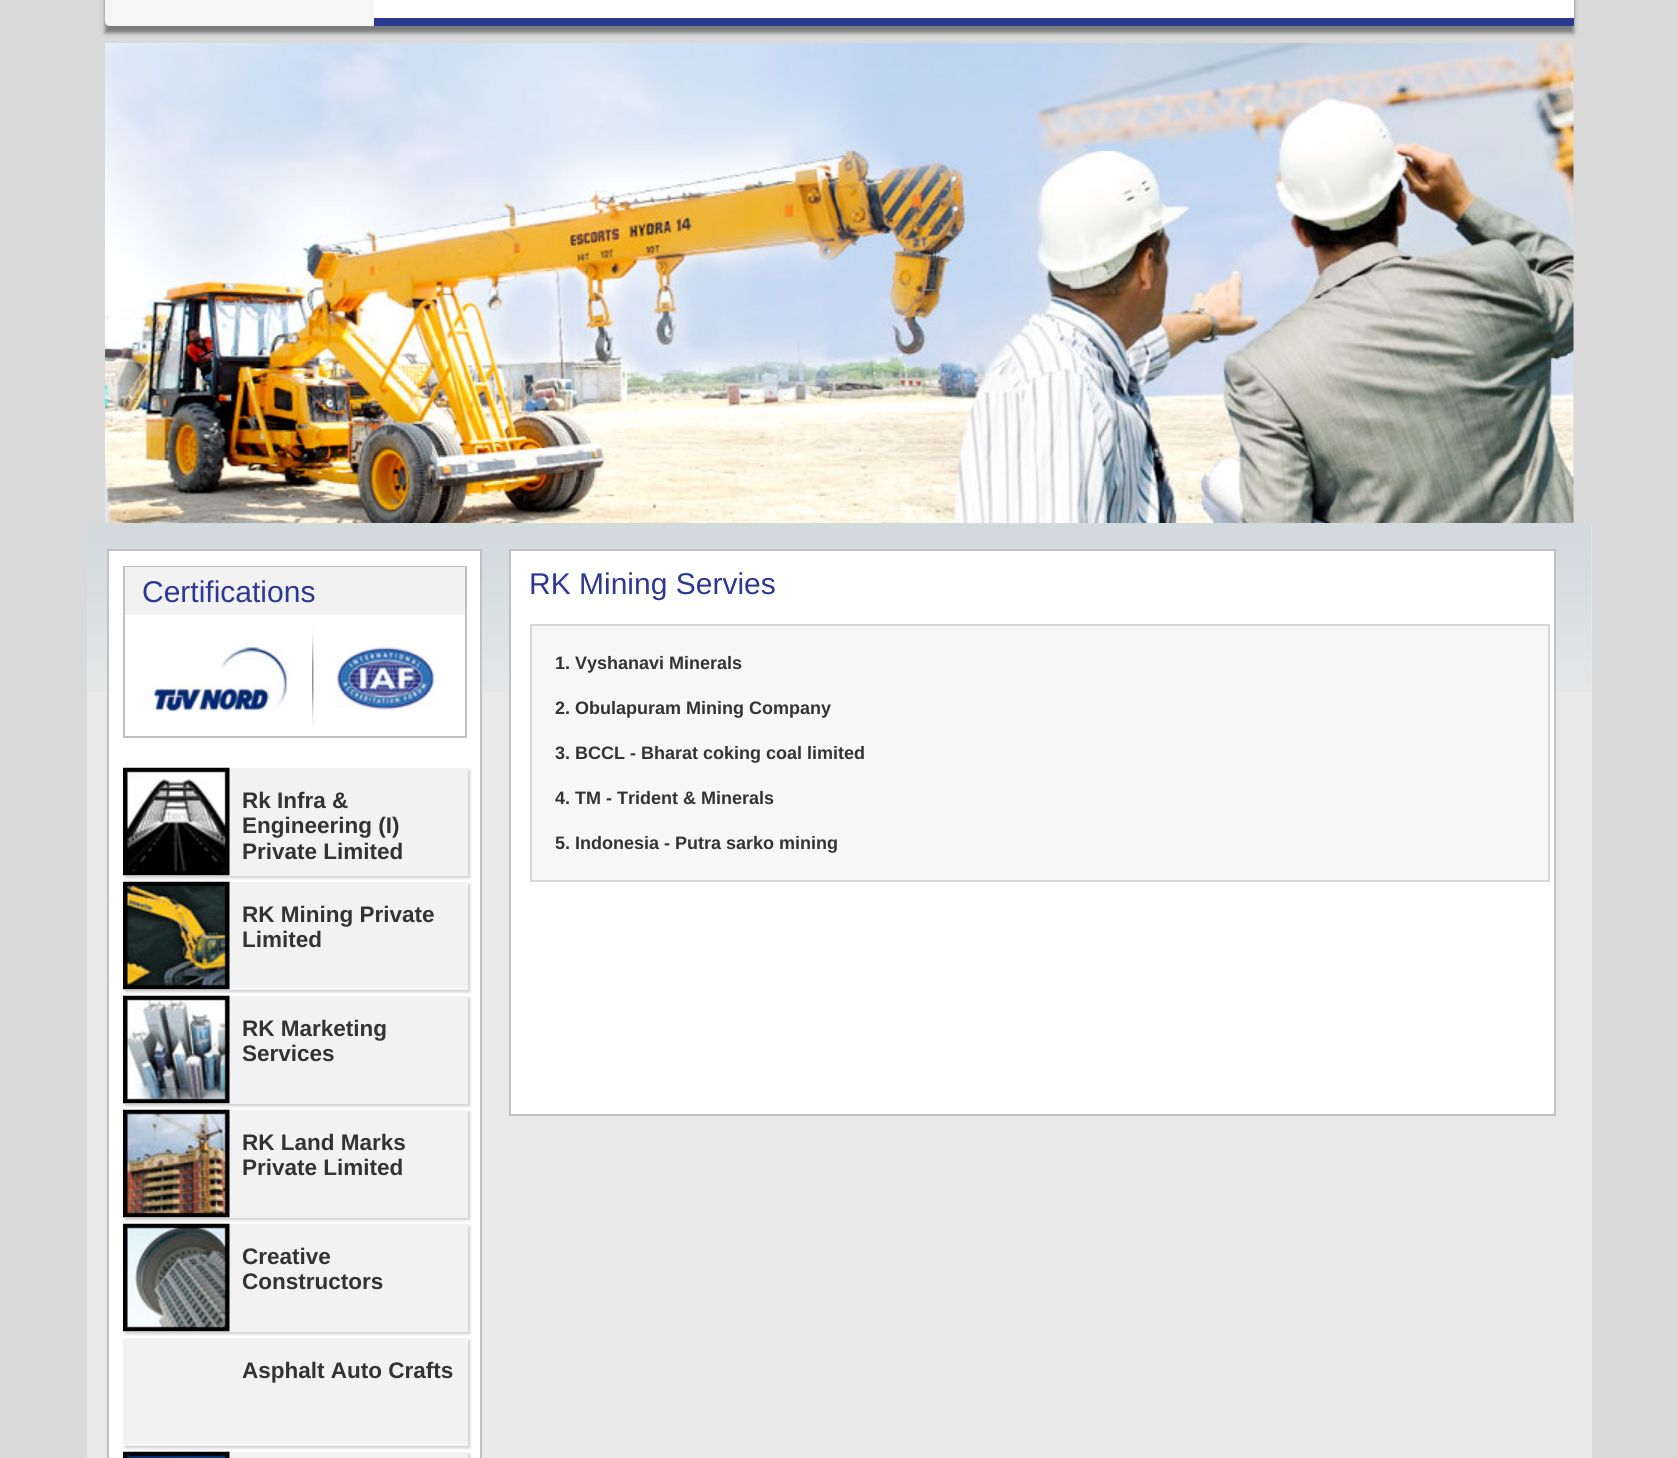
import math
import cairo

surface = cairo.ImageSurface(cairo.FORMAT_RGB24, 1677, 1458)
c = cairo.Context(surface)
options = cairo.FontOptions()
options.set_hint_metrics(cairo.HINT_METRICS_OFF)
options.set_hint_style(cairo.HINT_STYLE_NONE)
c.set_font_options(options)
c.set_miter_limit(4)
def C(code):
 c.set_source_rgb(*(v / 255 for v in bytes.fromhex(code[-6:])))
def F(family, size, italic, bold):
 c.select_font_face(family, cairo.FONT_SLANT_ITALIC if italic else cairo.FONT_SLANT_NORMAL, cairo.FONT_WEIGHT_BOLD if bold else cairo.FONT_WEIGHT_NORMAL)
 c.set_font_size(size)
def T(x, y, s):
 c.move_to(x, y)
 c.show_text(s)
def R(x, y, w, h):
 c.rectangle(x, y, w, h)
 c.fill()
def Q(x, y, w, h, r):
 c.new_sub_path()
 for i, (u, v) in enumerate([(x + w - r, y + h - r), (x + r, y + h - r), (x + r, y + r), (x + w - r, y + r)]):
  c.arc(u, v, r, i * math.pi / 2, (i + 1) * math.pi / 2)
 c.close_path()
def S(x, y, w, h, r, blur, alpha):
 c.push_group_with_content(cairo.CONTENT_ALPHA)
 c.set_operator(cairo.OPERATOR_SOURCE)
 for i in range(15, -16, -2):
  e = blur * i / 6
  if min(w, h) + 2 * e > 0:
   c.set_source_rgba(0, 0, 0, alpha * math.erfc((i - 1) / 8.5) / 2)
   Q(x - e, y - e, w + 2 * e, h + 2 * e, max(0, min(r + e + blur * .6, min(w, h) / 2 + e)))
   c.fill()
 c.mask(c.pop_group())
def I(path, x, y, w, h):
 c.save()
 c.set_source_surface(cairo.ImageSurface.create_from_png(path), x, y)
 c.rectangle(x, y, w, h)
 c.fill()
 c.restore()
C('d9d9d9')
c.paint()
C('7c7c7c')
S(105,-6,1469,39,0,2,1)
C('f6f6f6')
c.new_path()
c.move_to(110,-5)
c.line_to(369,-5)
c.curve_to(372,-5,374,-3,374,0)
c.line_to(374,26)
c.line_to(110,26)
c.curve_to(107,26,105,24,105,21)
c.line_to(105,0)
c.curve_to(105,-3,107,-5,110,-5)
c.close_path()
c.fill()
C('ffffff')
R(374,0,1200,18)
C('2c3990')
R(374,18,1200,8)
I('1.png',105,43,1469,480)
C('eae9e9')
R(87,524,1505,934)
I('2.png',87,523,1505,169)
C('ffffff')
c.rectangle(108,550,373,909)
c.fill_preserve()
C('c1c1c1')
c.stroke()
c.rectangle(124,567,342,170)
C('bfc0c0')
c.stroke()
C('f2f2f2')
R(125,567,340,48)
F('Liberation Sans',30,0,0)
C('2c3990')
T(142,602,'Certifications')
I('3.png',151,647,139,64)
I('4.png',312,629,2,99)
I('5.png',336,647,101,63)
C('000000')
S(125,770,345,108,0,1.5,.2)
C('f2f2f2')
R(123,768,345,108)
I('6.png',123,767,107,109)
F('Liberation Sans',22.5,0,1)
C('333333')
T(242,808,'Rk Infra &')
T(242,833,'Engineering (I)')
T(242,859,'Private Limited')
C('000000')
S(125,884,345,108,0,1.5,.2)
C('f2f2f2')
R(123,882,345,108)
I('7.png',123,881,107,109)
C('333333')
T(242,922,'RK Mining Private')
T(242,947,'Limited')
C('000000')
S(125,998,345,108,0,1.5,.2)
C('f2f2f2')
R(123,996,345,108)
I('8.png',123,995,107,109)
C('333333')
T(242,1036,'RK Marketing')
T(242,1061,'Services')
C('000000')
S(125,1112,345,108,0,1.5,.2)
C('f2f2f2')
R(123,1110,345,108)
I('9.png',123,1109,107,109)
C('333333')
T(242,1150,'RK Land Marks')
T(242,1175,'Private Limited')
C('000000')
S(125,1226,345,108,0,1.5,.2)
C('f2f2f2')
R(123,1224,345,108)
I('10.png',123,1223,107,109)
C('333333')
T(242,1264,'Creative')
T(242,1289,'Constructors')
C('000000')
S(125,1340,345,108,0,1.5,.2)
C('f2f2f2')
R(123,1338,345,108)
C('333333')
T(242,1378,'Asphalt Auto Crafts')
C('000000')
S(125,1454,345,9,0,1.5,.2)
C('f2f2f2')
R(229,1452,239,6)
I('11.png',123,1451,107,7)
C('ffffff')
c.rectangle(510,550,1045,565)
c.fill_preserve()
C('c1c1c1')
c.stroke()
F('Liberation Sans',30,0,0)
C('2c3990')
T(529,594,'RK Mining Servies')
C('f7f7f7')
c.rectangle(531,625,1018,256)
c.fill_preserve()
C('d7d7d7')
c.stroke()
F('Liberation Sans',18,0,1)
C('333333')
T(555,669,'1. Vyshanavi Minerals')
T(555,714,'2. Obulapuram Mining Company')
T(555,759,'3. BCCL - Bharat coking coal limited')
T(555,804,'4. TM - Trident & Minerals')
T(555,849,'5. Indonesia - Putra sarko mining')
surface.write_to_png('o.png')
